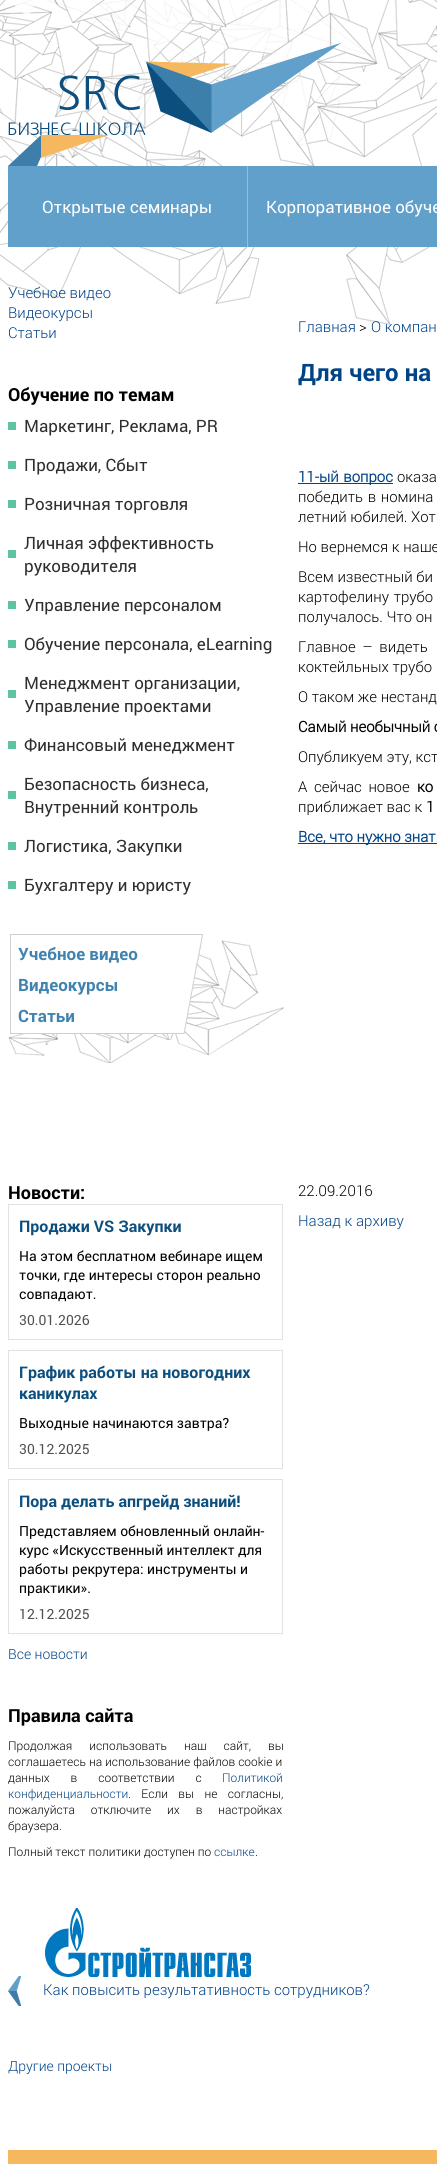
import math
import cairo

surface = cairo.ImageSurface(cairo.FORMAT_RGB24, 437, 2164)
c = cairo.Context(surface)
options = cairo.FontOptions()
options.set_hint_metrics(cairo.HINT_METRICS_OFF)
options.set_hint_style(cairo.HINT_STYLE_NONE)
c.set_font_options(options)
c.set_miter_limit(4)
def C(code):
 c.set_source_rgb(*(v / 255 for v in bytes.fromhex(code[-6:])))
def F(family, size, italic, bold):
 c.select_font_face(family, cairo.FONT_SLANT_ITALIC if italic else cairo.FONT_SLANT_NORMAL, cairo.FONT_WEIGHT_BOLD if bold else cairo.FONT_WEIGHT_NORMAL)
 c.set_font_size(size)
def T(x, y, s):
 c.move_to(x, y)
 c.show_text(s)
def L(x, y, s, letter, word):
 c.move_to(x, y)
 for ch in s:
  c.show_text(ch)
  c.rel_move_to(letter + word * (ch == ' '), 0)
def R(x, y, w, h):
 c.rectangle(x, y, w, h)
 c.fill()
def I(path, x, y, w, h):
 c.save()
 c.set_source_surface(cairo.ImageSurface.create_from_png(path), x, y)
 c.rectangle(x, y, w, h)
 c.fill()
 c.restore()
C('ffffff')
c.paint()
I('1.png',0,0,372,304)
I('2.png',14,0,423,325)
I('3.png',8,43,333,92)
I('4.png',8,135,101,31)
C('60a0ca')
R(8,166,429,81)
C('8dbedf')
R(247,166,1,81)
F('Roboto',17,0,0)
C('ffffff')
T(42,213,'Открытые семинары')
T(266,213,'Корпоративное обуче')
F('Roboto Light',15,0,0)
C('014387')
T(8,298,'Учебное видео')
T(8,318,'Видеокурсы')
T(8,338,'Статьи')
F('Roboto',18,0,1)
C('000000')
T(8,401,'Обучение по темам')
C('5ec2a5')
R(8,422,8,8)
F('Roboto',17,0,0)
C('2e2e2e')
T(24,432,'Маркетинг, Реклама, PR')
C('5ec2a5')
R(8,461,8,8)
C('2e2e2e')
T(24,471,'Продажи, Сбыт')
C('5ec2a5')
R(8,500,8,8)
C('2e2e2e')
T(24,510,'Розничная торговля')
C('5ec2a5')
R(8,550,8,8)
C('2e2e2e')
T(24,549,'Личная эффективность')
T(24,572,'руководителя')
C('5ec2a5')
R(8,601,8,8)
C('2e2e2e')
T(24,611,'Управление персоналом')
C('5ec2a5')
R(8,640,8,8)
C('2e2e2e')
T(24,650,'Обучение персонала, eLearning')
C('5ec2a5')
R(8,690,8,8)
C('2e2e2e')
T(24,689,'Менеджмент организации,')
T(24,712,'Управление проектами')
C('5ec2a5')
R(8,741,8,8)
C('2e2e2e')
T(24,751,'Финансовый менеджмент')
C('5ec2a5')
R(8,791,8,8)
C('2e2e2e')
T(24,790,'Безопасность бизнеса,')
T(24,813,'Внутренний контроль')
C('5ec2a5')
R(8,842,8,8)
C('2e2e2e')
T(24,852,'Логистика, Закупки')
C('5ec2a5')
R(8,881,8,8)
C('2e2e2e')
T(24,891,'Бухгалтеру и юристу')
I('5.png',8,934,276,129)
F('Roboto',17,0,1)
C('4183b0')
T(18,960,'Учебное видео')
T(18,991,'Видеокурсы')
T(18,1022,'Статьи')
F('Roboto',18,0,1)
C('000000')
T(8,1199,'Новости:')
c.rectangle(8.5,1204.5,274,135)
C('e2e2e2')
c.set_line_width(1)
c.stroke()
F('Roboto',16,0,1)
C('0c4f7f')
T(19,1232,'Продажи VS Закупки')
F('Roboto',14,0,0)
C('000000')
T(19,1261,'На этом бесплатном вебинаре ищем')
T(19,1280,'точки, где интересы сторон реально')
T(19,1299,'совпадают.')
C('515151')
T(19,1325,'30.01.2026')
c.rectangle(8.5,1350.5,274,118)
C('e2e2e2')
c.stroke()
F('Roboto',16,0,1)
C('0c4f7f')
T(19,1378,'График работы на новогодних')
T(19,1399,'каникулах')
F('Roboto',14,0,0)
C('000000')
T(19,1428,'Выходные начинаются завтра?')
C('515151')
T(19,1454,'30.12.2025')
c.rectangle(8.5,1479.5,274,154)
C('e2e2e2')
c.stroke()
F('Roboto',16,0,1)
C('0c4f7f')
T(19,1507,'Пора делать апгрейд знаний!')
F('Roboto',14,0,0)
C('000000')
T(19,1536,'Представляем обновленный онлайн-')
T(19,1555,'курс «Искусственный интеллект для')
T(19,1574,'работы рекрутера: инструменты и')
T(19,1593,'практики».')
C('515151')
T(19,1619,'12.12.2025')
F('Roboto Light',14,0,0)
C('014387')
T(8,1659,'Все новости')
F('Roboto',18,0,1)
C('000000')
T(8,1722,'Правила сайта')
F('Roboto Light',12,0,0)
L(8,1750,'Продолжая использовать наш сайт, вы',0,14)
T(8,1766,'соглашаетесь')
T(89,1766,'на использование файлов cookie и')
L(8,1782,'данных в соответствии с',0,18)
C('014387')
T(222,1782,'Политикой')
T(8,1798,'конфиденциальности')
C('000000')
L(128,1798,'. Если вы не согласны,',0,7.5)
L(8,1814,'пожалуйста отключите их в настройках',0,13)
T(8,1830,'браузера.')
T(8,1856,'Полный текст политики доступен по')
C('014387')
T(214,1856,'ссылке')
C('000000')
T(255,1856,'.')
F('Roboto Light',15,0,0)
C('014387')
T(298,332,'Главная')
C('000000')
T(359,332,'>')
C('014387')
T(371,332,'О компан')
F('Roboto',24,0,1)
T(298,381,'Для чего на')
R(298,483,95,1)
F('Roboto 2',15,0,1)
L(298,482,'11-ый вопрос',0,1)
F('Roboto Light',15,0,0)
C('000000')
L(397,482,'оказа',0,1)
L(298,502,'победить в номина',0,1)
T(298,522,'летний юбилей. Хот')
T(298,552,'Но вернемся к наше')
T(298,582,'Всем известный би')
L(298,602,'картофелину трубо',0,1)
T(298,622,'получалось. Что он')
L(298,652,'Главное – видеть',0,3)
T(298,672,'коктейльных трубо')
T(298,702,'О таком же нестанд')
F('Roboto 2',15,0,1)
T(298,732,'Самый необычный с')
F('Roboto Light',15,0,0)
T(298,762,'Опубликуем эту, кст')
T(298,792,'А')
L(314,792,'сейчас новое',0,3)
F('Roboto 2',15,0,1)
L(417,792,'ко',0,3)
F('Roboto Light',15,0,0)
T(298,812,'приближает вас к')
F('Roboto 2',15,0,1)
T(426,812,'1')
C('014387')
R(298,843,139,1)
T(298,842,'Все, что нужно знат')
F('Roboto Light',15,0,0)
C('000000')
T(298,1196,'22.09.2016')
C('014387')
T(298,1226,'Назад к архиву')
I('6.png',8,1976,14,30)
I('7.png',45,1908,206,69)
T(43,1995,'Как повысить результативность сотрудников?')
F('Roboto Light',14,0,0)
T(8,2071,'Другие проекты')
C('f6b85e')
R(8,2150,429,14)
surface.write_to_png('o.png')
